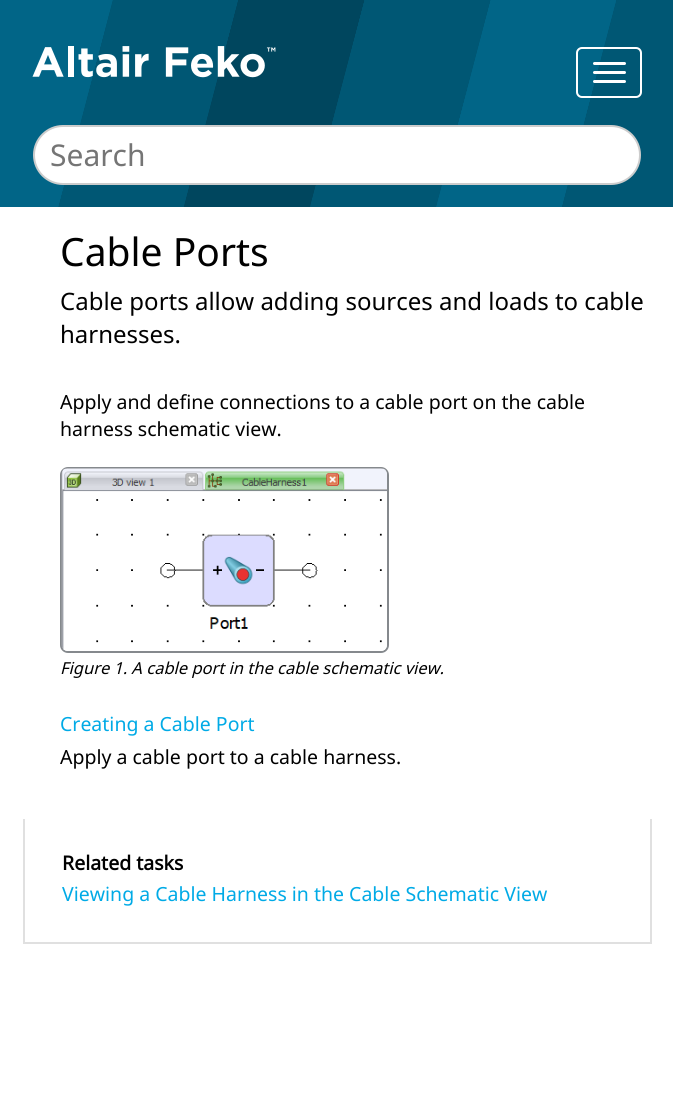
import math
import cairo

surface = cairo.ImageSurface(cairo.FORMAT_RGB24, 673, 1095)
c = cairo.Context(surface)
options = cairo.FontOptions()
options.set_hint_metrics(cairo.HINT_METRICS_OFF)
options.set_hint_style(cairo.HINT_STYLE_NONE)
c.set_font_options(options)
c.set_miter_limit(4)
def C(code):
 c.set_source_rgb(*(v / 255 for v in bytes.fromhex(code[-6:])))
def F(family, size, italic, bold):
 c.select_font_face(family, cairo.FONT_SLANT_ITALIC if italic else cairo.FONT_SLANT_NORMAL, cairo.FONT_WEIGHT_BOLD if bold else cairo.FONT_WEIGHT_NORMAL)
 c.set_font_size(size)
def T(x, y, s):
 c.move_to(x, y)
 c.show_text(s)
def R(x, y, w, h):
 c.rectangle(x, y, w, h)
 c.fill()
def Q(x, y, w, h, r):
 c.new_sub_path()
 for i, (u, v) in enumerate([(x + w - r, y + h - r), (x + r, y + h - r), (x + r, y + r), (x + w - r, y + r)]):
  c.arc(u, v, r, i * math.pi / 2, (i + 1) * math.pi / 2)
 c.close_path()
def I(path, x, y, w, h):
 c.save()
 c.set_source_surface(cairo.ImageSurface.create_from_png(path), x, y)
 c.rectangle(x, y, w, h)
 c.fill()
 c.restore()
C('ffffff')
c.paint()
I('1.png',0,0,673,207)
I('2.png',32,46,244,32)
Q(577,48,64,49,5)
C('ffffff')
c.stroke()
Q(593,62,33,3,1.5)
c.fill()
Q(593,71,33,3,1.5)
c.fill()
Q(593,80,33,3,1.5)
c.fill()
Q(34,126,606,58,29)
c.fill_preserve()
C('cccccc')
c.stroke()
F('Noto Sans',30,0,0)
C('757575')
T(50,166,'Search')
F('Noto Sans',39,0,0)
C('000000')
T(60,266,'Cable Ports')
F('Noto Sans',24,0,0)
T(60,310,'Cable ports allow adding sources and loads to cable')
T(60,343,'harnesses.')
F('Noto Sans',19.5,0,0)
T(60,409,'Apply and define connections to a cable port on the cable')
T(60,436,'harness schematic view.')
Q(61,468,327,184,7)
C('85898d')
c.stroke()
I('3.png',61,468,326,183)
F('Noto Sans',16.5,1,0)
C('000000')
T(60,674,'Figure 1. A cable port in the cable schematic view.')
F('Noto Sans',19.5,0,0)
C('00aae6')
T(60,731,'Creating a Cable Port')
C('000000')
T(60,764,'Apply a cable port to a cable harness.')
C('e0e0e0')
R(650,819,2,125)
R(23,942,628,2)
R(23,819,2,125)
F('Noto Sans',19.5,0,1)
C('000000')
T(62,870,'Related tasks')
F('Noto Sans',19.5,0,0)
C('00aae6')
T(62,901,'Viewing a Cable Harness in the Cable Schematic View')
surface.write_to_png('o.png')
